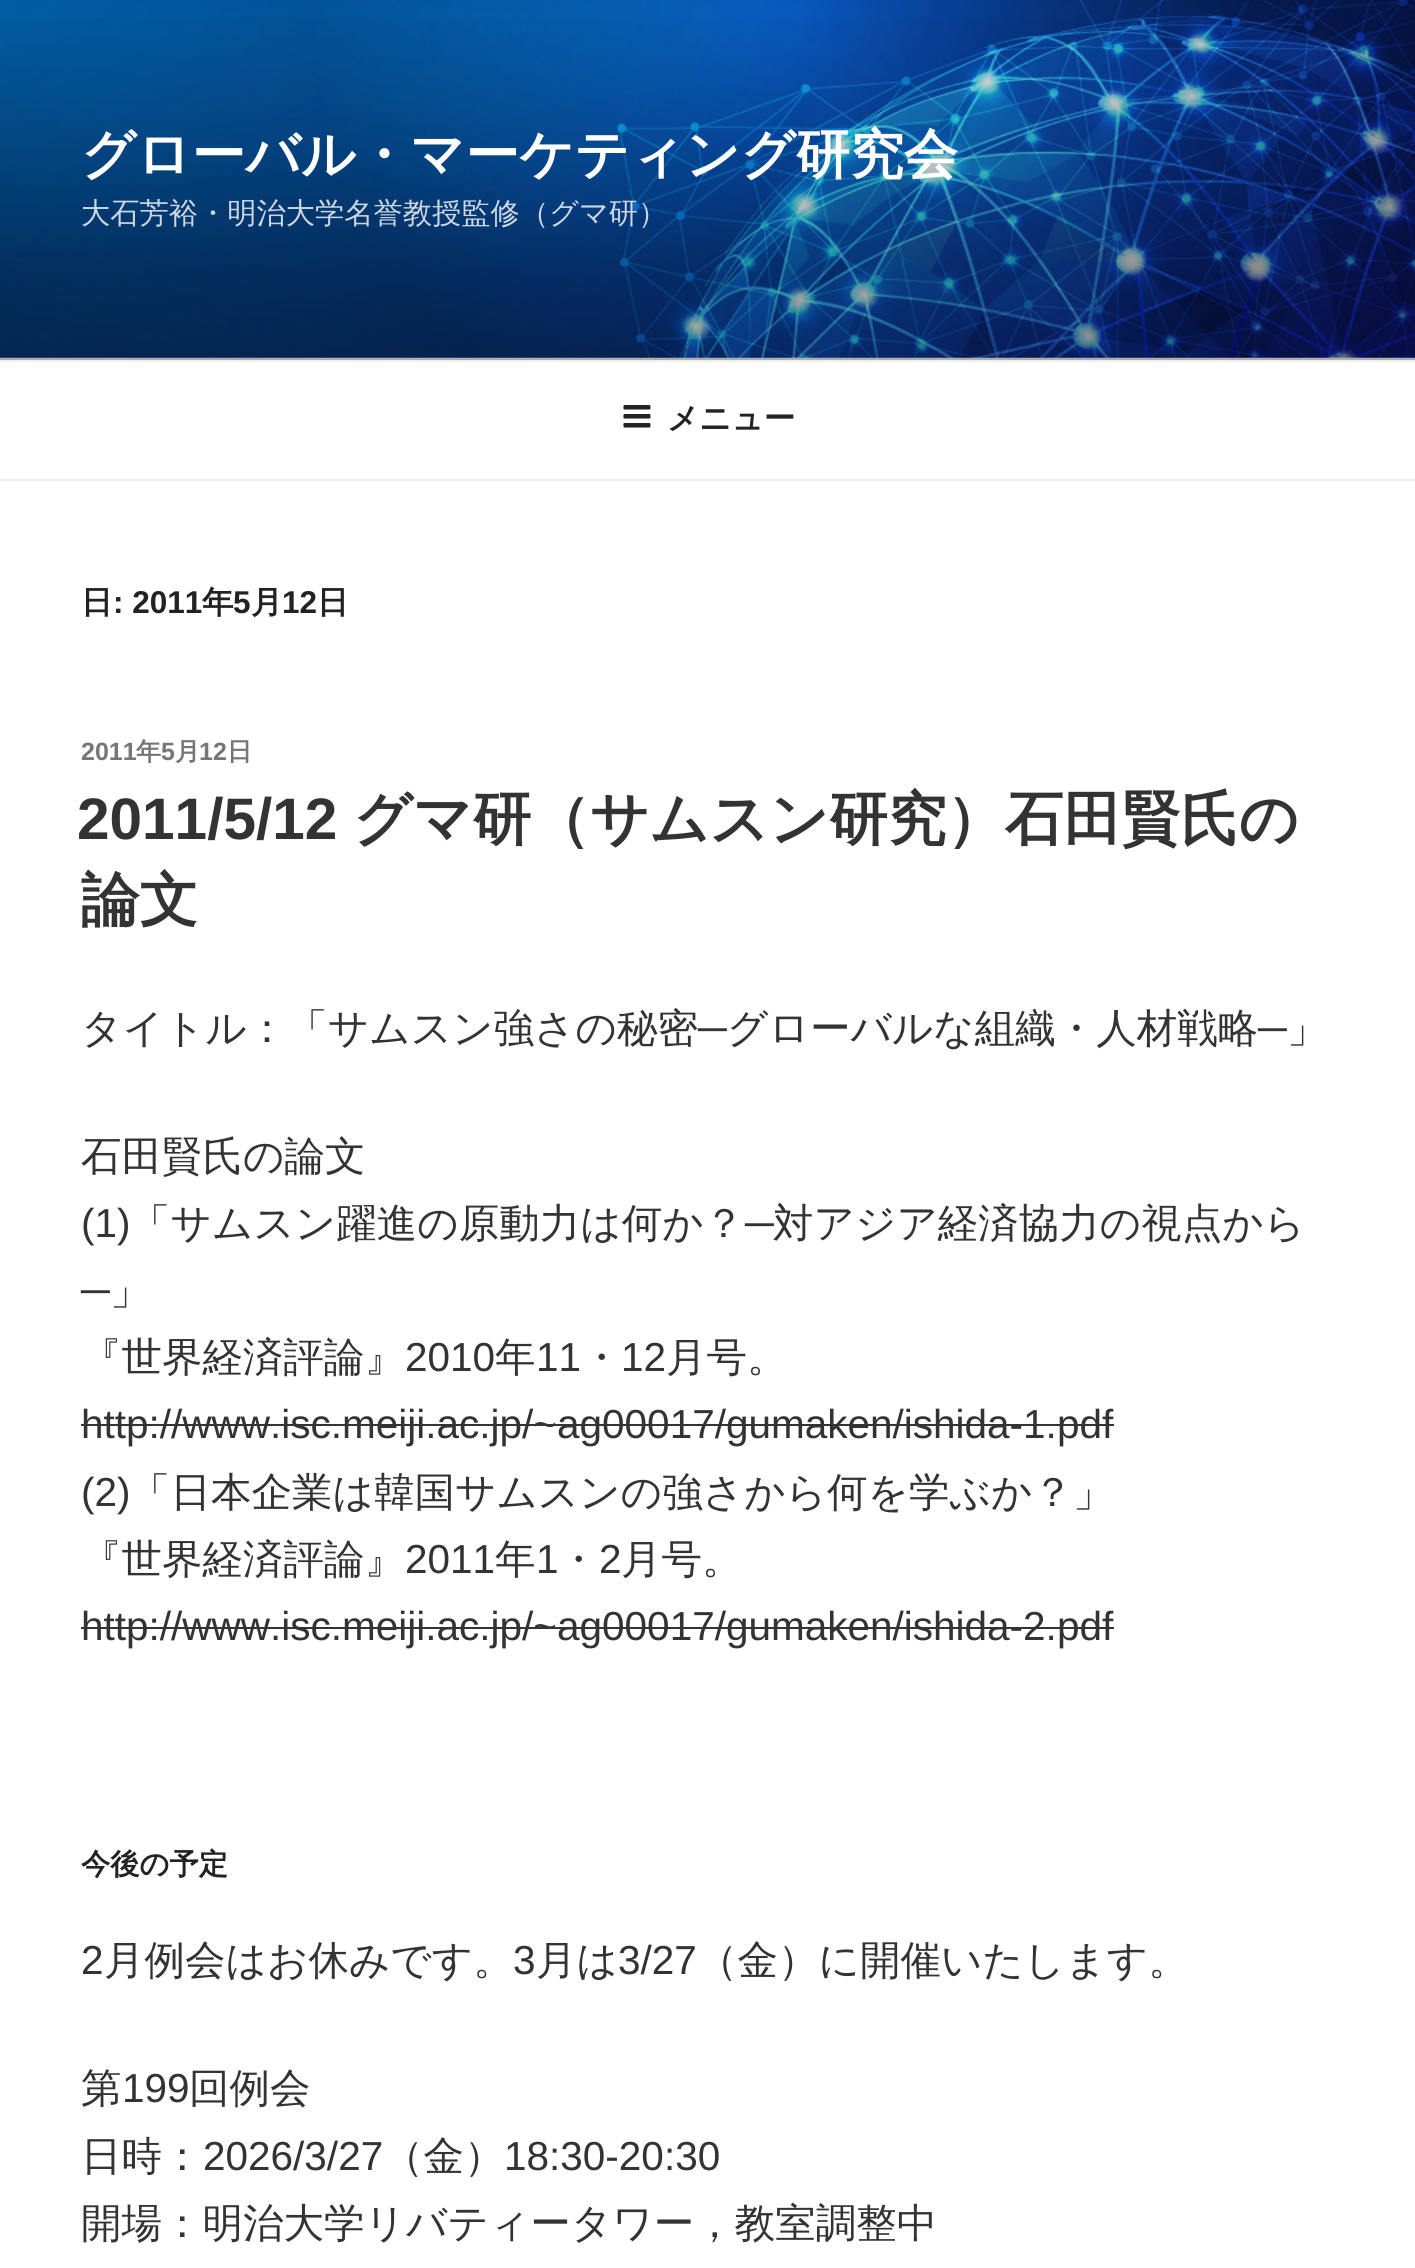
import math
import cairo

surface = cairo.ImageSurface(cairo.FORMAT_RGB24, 1415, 2268)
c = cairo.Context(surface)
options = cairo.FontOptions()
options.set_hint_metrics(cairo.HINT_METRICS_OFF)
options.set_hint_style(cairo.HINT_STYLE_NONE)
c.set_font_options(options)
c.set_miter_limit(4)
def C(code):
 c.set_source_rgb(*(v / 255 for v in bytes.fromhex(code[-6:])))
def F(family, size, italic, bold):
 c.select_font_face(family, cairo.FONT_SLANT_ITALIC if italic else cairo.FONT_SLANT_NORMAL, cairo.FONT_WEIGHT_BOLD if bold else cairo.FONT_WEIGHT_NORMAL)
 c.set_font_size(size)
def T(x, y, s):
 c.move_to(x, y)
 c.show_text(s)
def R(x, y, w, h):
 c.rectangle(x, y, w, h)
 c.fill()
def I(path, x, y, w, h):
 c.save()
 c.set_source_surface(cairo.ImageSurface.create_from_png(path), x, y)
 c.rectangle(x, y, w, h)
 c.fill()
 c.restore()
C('ffffff')
c.paint()
C('fafafa')
R(0,357,1415,3)
I('1.png',0,0,1415,358)
gradient = cairo.LinearGradient(708,0,708,360)
gradient.add_color_stop_rgba(0,0,0,0,0)
gradient.add_color_stop_rgba(.75,0,0,0,.3)
gradient.add_color_stop_rgba(1,0,0,0,.3)
c.set_source(gradient)
R(0,19,1415,341)
F('WenQuanYi Zen Hei',54,0,1)
C('ffffff')
T(81,173,'グローバル・マーケティング研究会')
F('WenQuanYi Zen Hei Medium',29.25,0,0)
C('cdd7e3')
T(81,223,'大石芳裕・明治大学名誉教授監修（グマ研）')
C('eeeeee')
R(0,360,1415,2)
R(0,479,1415,2)
I('2.png',623,405,28,23)
F('WenQuanYi Zen Hei',31.5,0,1)
C('222222')
T(667,429,'メニュー')
T(81,613,'日')
F('Liberation Sans',31.5,0,1)
T(113,613,': 2011')
F('WenQuanYi Zen Hei',31.5,0,1)
T(202,613,'年')
F('Liberation Sans',31.5,0,1)
T(233,613,'5')
F('WenQuanYi Zen Hei',31.5,0,1)
T(251,613,'月')
F('Liberation Sans',31.5,0,1)
T(282,613,'12')
F('WenQuanYi Zen Hei',31.5,0,1)
T(317,613,'日')
F('Liberation Sans',25,0,1)
C('767676')
T(81,760,'2011')
F('WenQuanYi Zen Hei',25,0,1)
T(136,760,'年')
F('Liberation Sans',25,0,1)
T(161,760,'5')
F('WenQuanYi Zen Hei',25,0,1)
T(175,760,'月')
F('Liberation Sans',25,0,1)
T(199,760,'12')
F('WenQuanYi Zen Hei',25,0,1)
T(227,760,'日')
F('Liberation Sans',58.5,0,1)
C('333333')
T(77,839,'2011/5/12')
F('WenQuanYi Zen Hei',58.5,0,1)
T(353,839,'グマ研（サムスン研究）石田賢氏の')
T(81,920,'論文')
F('WenQuanYi Zen Hei Medium',40.5,0,0)
T(81,1042,'タイトル：「サムスン強さの秘密')
F('Liberation Sans',40.5,0,0)
T(698,1042,'─')
F('WenQuanYi Zen Hei Medium',40.5,0,0)
T(727,1042,'グローバルな組織・人材戦略')
F('Liberation Sans',40.5,0,0)
T(1258,1042,'─')
F('WenQuanYi Zen Hei Medium',40.5,0,0)
T(1287,1042,'」')
T(81,1170,'石田賢氏の論文')
F('Liberation Sans',40.5,0,0)
T(81,1237,'(1)')
F('WenQuanYi Zen Hei Medium',40.5,0,0)
T(130,1237,'「サムスン躍進の原動力は何か？')
F('Liberation Sans',40.5,0,0)
T(745,1237,'─')
F('WenQuanYi Zen Hei Medium',40.5,0,0)
T(773,1237,'対アジア経済協力の視点から')
F('Liberation Sans',40.5,0,0)
T(81,1304,'─')
F('WenQuanYi Zen Hei Medium',40.5,0,0)
T(110,1304,'」')
T(81,1371,'『世界経済評論』')
F('Liberation Sans',40.5,0,0)
T(405,1371,'2010')
F('WenQuanYi Zen Hei Medium',40.5,0,0)
T(495,1371,'年')
F('Liberation Sans',40.5,0,0)
T(536,1371,'11')
F('WenQuanYi Zen Hei Medium',40.5,0,0)
T(581,1371,'・')
F('Liberation Sans',40.5,0,0)
T(621,1371,'12')
F('WenQuanYi Zen Hei Medium',40.5,0,0)
T(666,1371,'月号。')
F('Liberation Sans',40.5,0,0)
T(81,1438,'http://www.isc.meiji.ac.jp/~ag00017/gumaken/ishida-1.pdf')
R(81,1424,1033,2)
T(81,1506,'(2)')
F('WenQuanYi Zen Hei Medium',40.5,0,0)
T(130,1506,'「日本企業は韓国サムスンの強さから何を学ぶか？」')
T(81,1573,'『世界経済評論』')
F('Liberation Sans',40.5,0,0)
T(405,1573,'2011')
F('WenQuanYi Zen Hei Medium',40.5,0,0)
T(495,1573,'年')
F('Liberation Sans',40.5,0,0)
T(536,1573,'1')
F('WenQuanYi Zen Hei Medium',40.5,0,0)
T(558,1573,'・')
F('Liberation Sans',40.5,0,0)
T(599,1573,'2')
F('WenQuanYi Zen Hei Medium',40.5,0,0)
T(621,1573,'月号。')
F('Liberation Sans',40.5,0,0)
T(81,1640,'http://www.isc.meiji.ac.jp/~ag00017/gumaken/ishida-2.pdf')
R(81,1627,1033,2)
F('WenQuanYi Zen Hei',29.25,0,1)
C('222222')
T(81,1874,'今後の予定')
F('Liberation Sans',40.5,0,0)
C('333333')
T(81,1974,'2')
F('WenQuanYi Zen Hei Medium',40.5,0,0)
T(104,1974,'月例会はお休みです。')
F('Liberation Sans',40.5,0,0)
T(513,1974,'3')
F('WenQuanYi Zen Hei Medium',40.5,0,0)
T(536,1974,'月は')
F('Liberation Sans',40.5,0,0)
T(618,1974,'3/27')
F('WenQuanYi Zen Hei Medium',40.5,0,0)
T(697,1974,'（金）に開催いたします。')
T(81,2102,'第')
F('Liberation Sans',40.5,0,0)
T(122,2102,'199')
F('WenQuanYi Zen Hei Medium',40.5,0,0)
T(189,2102,'回例会')
T(81,2170,'日時：')
F('Liberation Sans',40.5,0,0)
T(203,2170,'2026/3/27')
F('WenQuanYi Zen Hei Medium',40.5,0,0)
T(383,2170,'（金）')
F('Liberation Sans',40.5,0,0)
T(504,2170,'18:30-20:30')
F('WenQuanYi Zen Hei Medium',40.5,0,0)
T(81,2237,'開場：明治大学リバティータワー，教室調整中')
surface.write_to_png('o.png')
